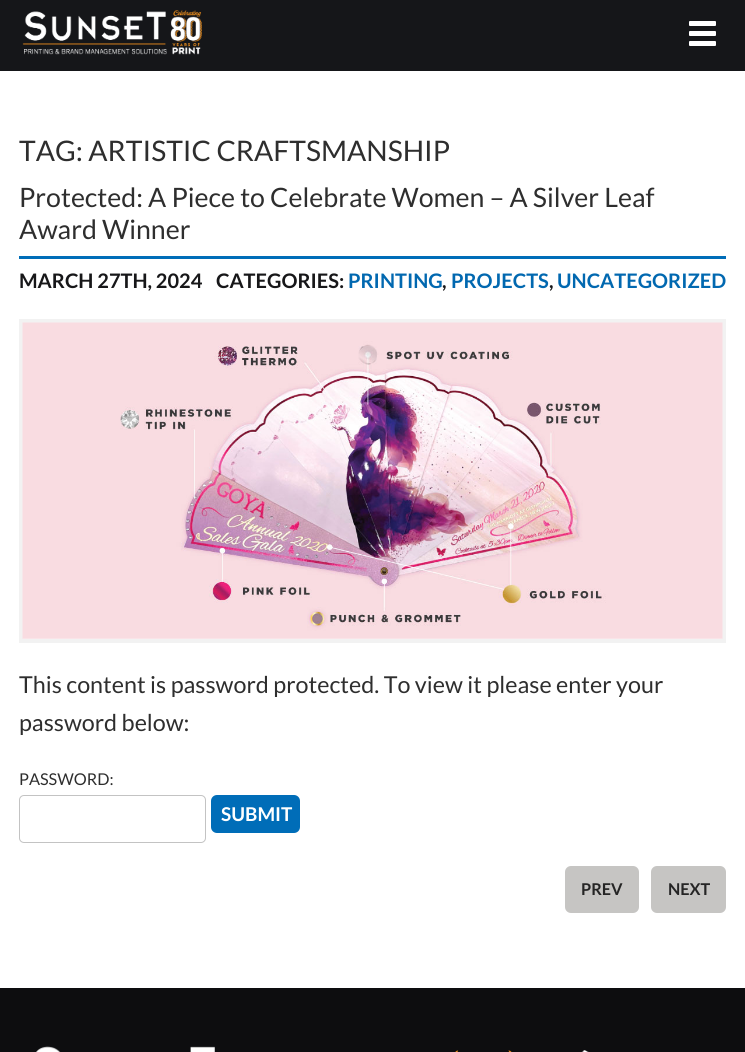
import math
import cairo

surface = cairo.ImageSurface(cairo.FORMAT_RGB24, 745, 1052)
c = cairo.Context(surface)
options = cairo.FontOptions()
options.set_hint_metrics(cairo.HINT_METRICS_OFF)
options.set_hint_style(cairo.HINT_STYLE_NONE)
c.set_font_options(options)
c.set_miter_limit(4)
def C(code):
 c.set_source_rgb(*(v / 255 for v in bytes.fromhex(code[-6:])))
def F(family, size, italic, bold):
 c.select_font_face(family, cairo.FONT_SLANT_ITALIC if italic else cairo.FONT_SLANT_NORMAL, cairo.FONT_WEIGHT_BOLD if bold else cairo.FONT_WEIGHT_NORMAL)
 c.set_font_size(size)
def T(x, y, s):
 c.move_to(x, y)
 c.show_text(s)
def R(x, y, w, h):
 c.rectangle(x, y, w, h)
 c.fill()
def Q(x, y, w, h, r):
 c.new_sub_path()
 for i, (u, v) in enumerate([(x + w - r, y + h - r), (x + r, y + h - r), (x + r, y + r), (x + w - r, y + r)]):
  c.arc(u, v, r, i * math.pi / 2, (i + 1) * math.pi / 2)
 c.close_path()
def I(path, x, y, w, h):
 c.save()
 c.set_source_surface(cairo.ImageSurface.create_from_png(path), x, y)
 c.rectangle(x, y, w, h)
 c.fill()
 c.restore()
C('ffffff')
c.paint()
C('151619')
R(0,0,745,71)
I('1.png',22,10,180,45)
C('ffffff')
Q(689,21,27,5,1)
c.fill()
Q(689,31,27,5,1)
c.fill()
Q(689,41,27,5,1)
c.fill()
F('Lato',28.3,0,0)
C('2e2e2e')
T(19,161,'TAG: ARTISTIC CRAFTSMANSHIP')
C('006db8')
R(19,256,707,3)
F('Lato',26.7,0,0)
C('2e2e2e')
T(19,207,'Protected: A Piece to Celebrate Women – A Silver Leaf')
T(19,239,'Award Winner')
F('Lato',20,0,1)
C('171719')
T(19,288,'MARCH 27TH, 2024')
T(216,288,'CATEGORIES:')
C('0168b0')
T(348,288,'PRINTING')
C('171719')
T(442,288,',')
C('0168b0')
T(451,288,'PROJECTS')
C('171719')
T(549,288,',')
C('0168b0')
T(557,288,'UNCATEGORIZED')
c.rectangle(21,321,703,320)
C('f2f2f2')
c.set_line_width(4)
c.stroke()
I('2.png',22,322,701,317)
F('Lato',23.3,0,0)
C('2e2e2e')
T(19,693,'This content is password protected. To view it please enter your')
T(19,731,'password below:')
F('Lato',16.25,0,0)
T(19,785,'PASSWORD:')
Q(19.5,795.5,186,47,4.5)
C('c3c3c3')
c.set_line_width(1)
c.stroke()
C('006db8')
Q(211,795,89,38,6)
c.fill()
F('Lato',19,0,1)
C('ffffff')
T(221,821,'SUBMIT')
C('c6c5c3')
Q(565,866,74,47,6)
c.fill()
F('Lato',16.25,0,1)
C('252525')
T(581,895,'PREV')
C('c6c5c3')
Q(651,866,75,47,6)
c.fill()
C('252525')
T(668,895,'NEXT')
C('0d0d0f')
R(0,988,745,64)
I('3.png',36,1046,179,6)
I('4.png',455,1050,57,2)
I('5.png',581,1050,8,2)
surface.write_to_png('o.png')
